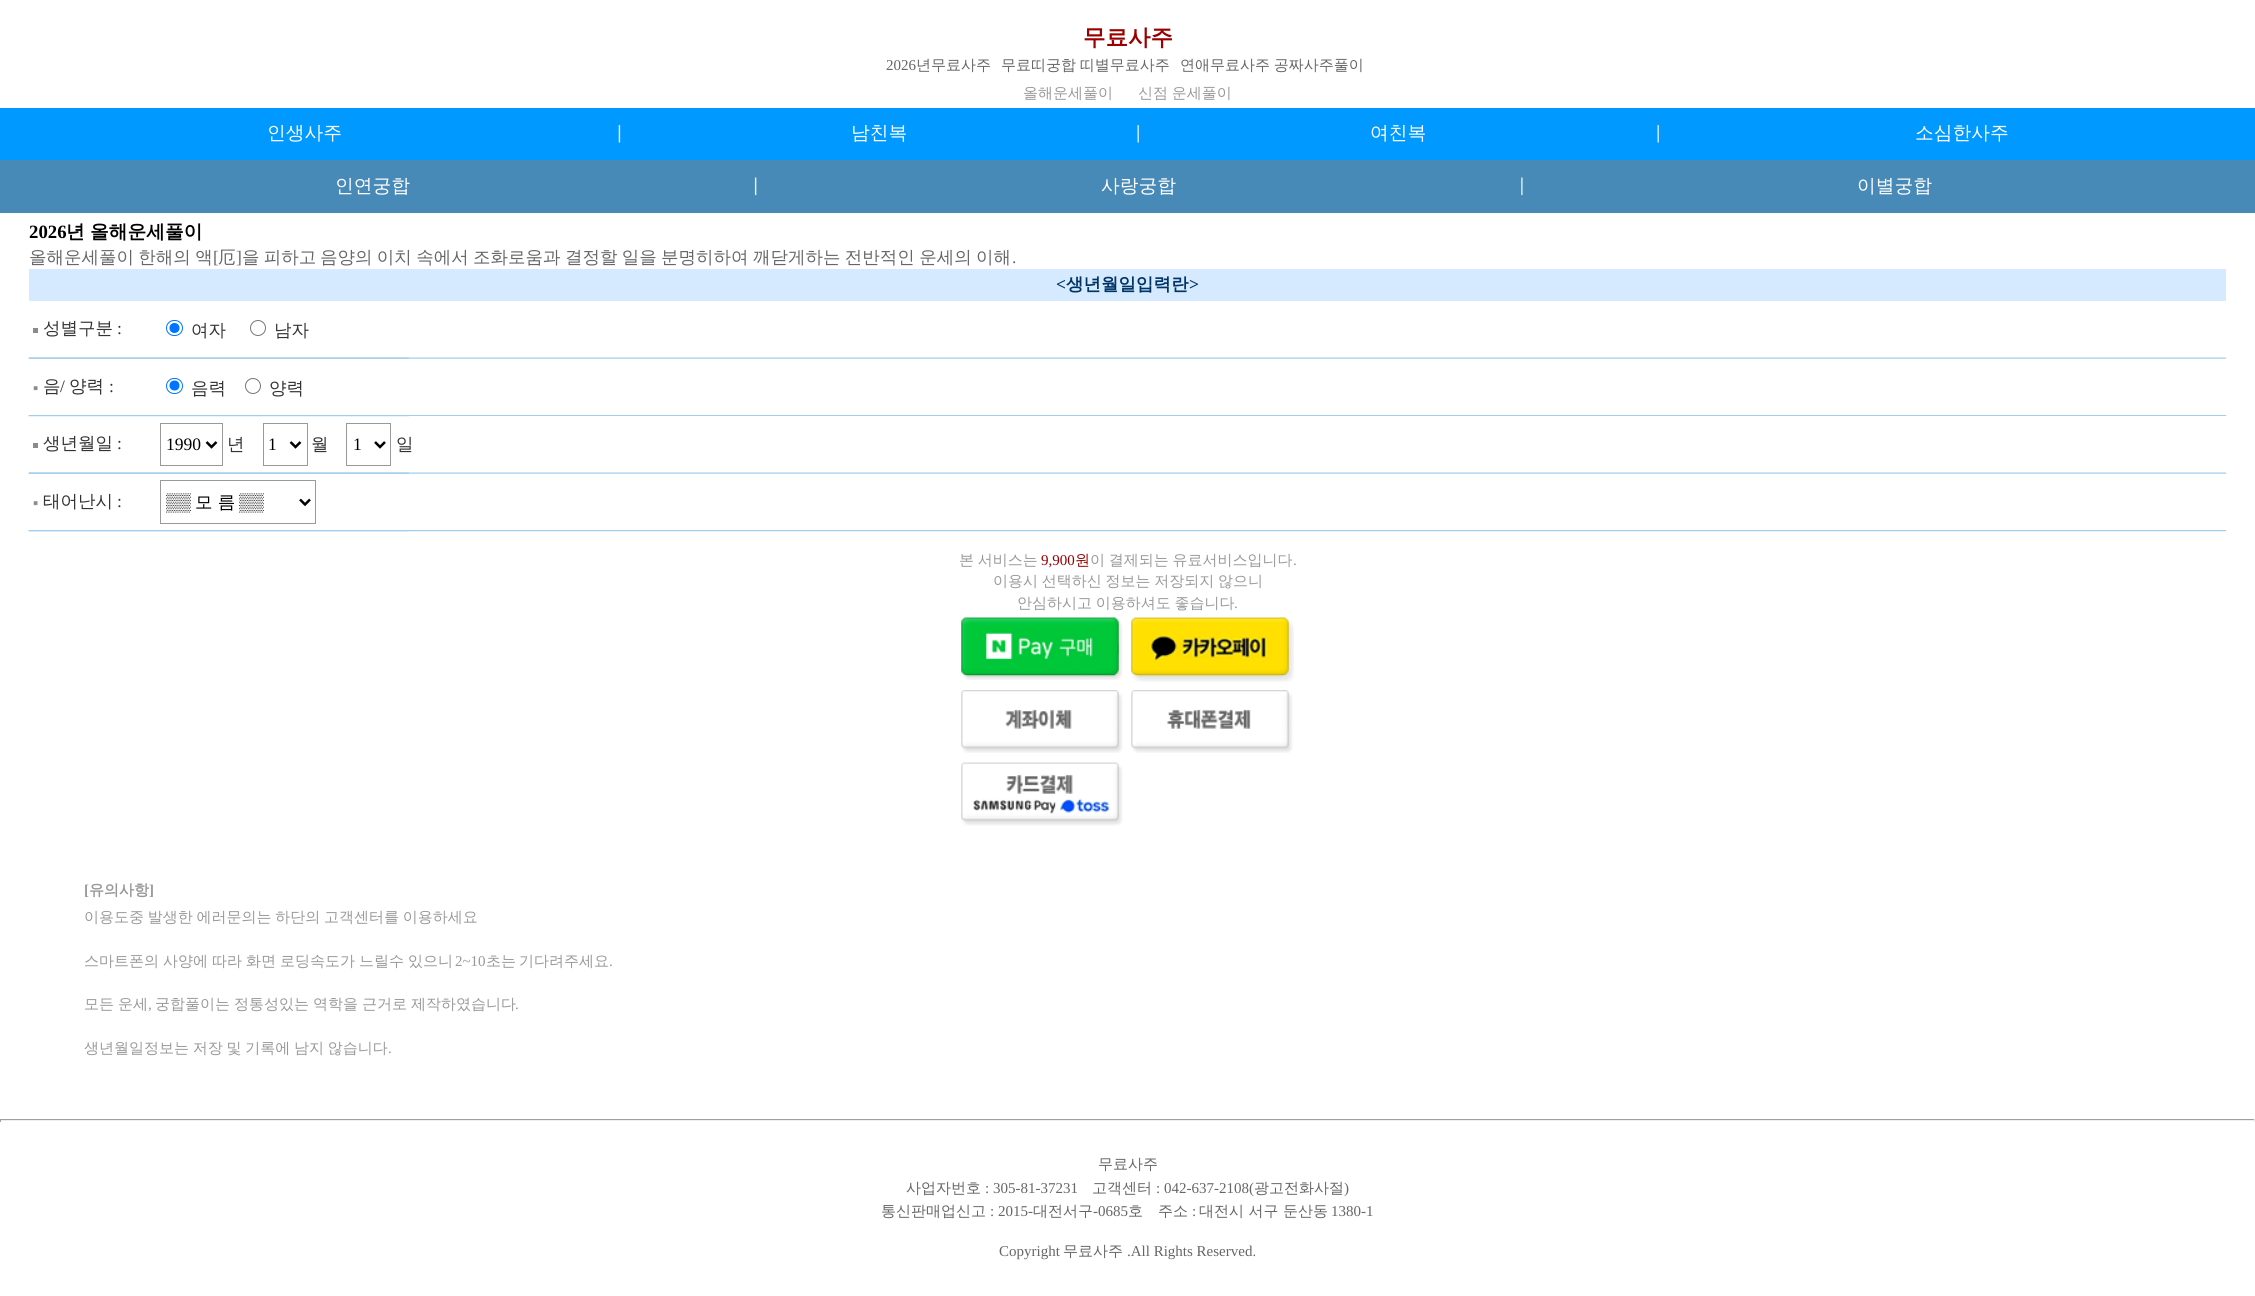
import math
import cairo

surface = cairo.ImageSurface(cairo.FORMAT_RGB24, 2255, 1296)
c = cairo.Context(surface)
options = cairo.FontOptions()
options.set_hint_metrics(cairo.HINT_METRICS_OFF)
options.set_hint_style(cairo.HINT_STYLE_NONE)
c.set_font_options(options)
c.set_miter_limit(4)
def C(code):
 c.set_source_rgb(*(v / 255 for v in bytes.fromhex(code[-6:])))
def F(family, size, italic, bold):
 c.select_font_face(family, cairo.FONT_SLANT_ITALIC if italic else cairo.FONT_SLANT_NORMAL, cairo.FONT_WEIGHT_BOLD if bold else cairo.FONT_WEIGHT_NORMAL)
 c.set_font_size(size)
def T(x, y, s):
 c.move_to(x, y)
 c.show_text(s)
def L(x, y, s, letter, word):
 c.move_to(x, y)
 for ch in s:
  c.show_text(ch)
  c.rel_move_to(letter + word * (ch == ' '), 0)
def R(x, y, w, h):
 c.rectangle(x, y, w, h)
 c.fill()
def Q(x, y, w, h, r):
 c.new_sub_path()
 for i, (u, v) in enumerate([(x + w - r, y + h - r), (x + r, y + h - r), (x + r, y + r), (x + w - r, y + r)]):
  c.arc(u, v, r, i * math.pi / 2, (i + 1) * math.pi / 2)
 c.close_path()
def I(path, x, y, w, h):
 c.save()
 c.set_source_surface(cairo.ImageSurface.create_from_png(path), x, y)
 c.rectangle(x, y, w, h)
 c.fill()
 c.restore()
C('ffffff')
c.paint()
F('WenQuanYi Zen Hei',22.5,0,1)
C('990000')
T(1083,45,'무료사주')
F('Liberation Serif',15,0,0)
C('666666')
T(886,70,'2026')
F('WenQuanYi Zen Hei Medium',15,0,0)
T(916,70,'년무료사주')
L(1001,70,'무료띠궁합 띠별무료사주',0,-.75)
L(1180,70,'연애무료사주 공짜사주풀이',0,-.75)
C('999999')
T(1023,98,'올해운세풀이')
L(1138,98,'신점 운세풀이',0,-.75)
C('0099ff')
R(0,108,2255,52)
F('WenQuanYi Zen Hei Medium',18.75,0,0)
C('ffffff')
T(267,139,'인생사주')
I('1.png',618,124,3,19)
T(851,139,'남친복')
I('2.png',1137,124,2,19)
T(1370,139,'여친복')
I('2.png',1657,124,2,19)
T(1915,139,'소심한사주')
C('488ab7')
R(0,160,2255,53)
C('ffffff')
T(335,192,'인연궁합')
I('3.png',754,177,3,19)
T(1101,192,'사랑궁합')
I('4.png',1521,177,2,19)
T(1857,192,'이별궁합')
F('Liberation Serif',18.75,0,1)
C('000000')
T(29,238,'2026')
F('WenQuanYi Zen Hei',18.75,0,1)
T(66,238,'년')
T(90,238,'올해운세풀이')
F('WenQuanYi Zen Hei Medium',17.5,0,0)
C('666666')
L(29,263,'올해운세풀이 한해의 액',0,-.9)
F('Liberation Serif',17.5,0,0)
T(213,263,'[')
F('WenQuanYi Zen Hei Medium',17.5,0,0)
T(218,263,'厄')
F('Liberation Serif',17.5,0,0)
T(236,263,']')
F('WenQuanYi Zen Hei Medium',17.5,0,0)
L(242,263,'을 피하고',0,-.9)
L(320,263,'음양의 이치 속에서 조화로움과 결정할 일을 분명히하여 깨닫게하는 전반적인 운세의 이해',0,-.9)
F('Liberation Serif',17.5,0,0)
T(1012,263,'.')
C('d5eaff')
R(29,269,2197,32)
F('Liberation Serif',17.5,0,1)
C('003366')
T(1056,290,'<')
F('WenQuanYi Zen Hei',17.5,0,1)
T(1066,290,'생년월일입력란')
F('Liberation Serif',17.5,0,1)
T(1189,290,'>')
C('8c8a8c')
R(33,328,5,5)
F('WenQuanYi Zen Hei Medium',17.5,0,0)
C('333333')
T(43,334,'성별구분')
F('Liberation Serif',17.5,0,0)
T(117,334,':')
Q(166.5,320.5,16,15,7.5)
C('0075ff')
c.set_line_width(1)
c.stroke()
c.arc(174.5,328,5,0,2 * math.pi)
c.fill()
F('WenQuanYi Zen Hei Medium',17.5,0,0)
C('333333')
T(191,336,'여자')
c.new_path()
c.arc(258,328,7.5,0,2 * math.pi)
C('767676')
c.stroke()
C('333333')
T(274,336,'남자')
I('5.png',28,357,2199,2)
I('6.png',28,357,381,2)
I('7.png',33,386,5,5)
T(43,392,'음')
F('Liberation Serif',17.5,0,0)
T(60,392,'/')
F('WenQuanYi Zen Hei Medium',17.5,0,0)
T(69,392,'양력')
F('Liberation Serif',17.5,0,0)
T(109,392,':')
Q(166.5,378.5,16,15,7.5)
C('0075ff')
c.stroke()
c.arc(174.5,385.5,5,0,2 * math.pi)
c.fill()
F('WenQuanYi Zen Hei Medium',17.5,0,0)
C('333333')
T(191,394,'음력')
c.new_path()
c.arc(253,386,7.5,0,2 * math.pi)
C('767676')
c.stroke()
C('333333')
T(269,394,'양력')
I('8.png',28,415,2199,2)
C('ffffff')
R(29,416,2197,1)
I('9.png',28,415,381,2)
C('8c8a8c')
R(33,443,5,5)
C('333333')
T(43,449,'생년월일')
F('Liberation Serif',17.5,0,0)
T(117,449,':')
c.rectangle(160.5,423.5,62,42)
C('999999')
c.stroke()
c.new_path()
c.move_to(206.5,442)
c.line_to(211.5,447)
c.line_to(216.5,442)
C('000000')
c.set_line_width(2.5)
c.stroke()
T(166,450,'1990')
F('WenQuanYi Zen Hei Medium',17.5,0,0)
C('333333')
T(227,450,'년')
c.rectangle(263.5,423.5,44,42)
C('999999')
c.set_line_width(1)
c.stroke()
c.new_path()
c.move_to(290.5,442)
c.line_to(295.5,447)
c.line_to(300.5,442)
C('000000')
c.set_line_width(2.5)
c.stroke()
F('Liberation Serif',17.5,0,0)
T(268,450,'1')
F('WenQuanYi Zen Hei Medium',17.5,0,0)
C('333333')
T(311,450,'월')
c.rectangle(346.5,423.5,44,42)
C('999999')
c.set_line_width(1)
c.stroke()
c.new_path()
c.move_to(375,442)
c.line_to(380,447)
c.line_to(385,442)
C('000000')
c.set_line_width(2.5)
c.stroke()
F('Liberation Serif',17.5,0,0)
T(353,450,'1')
F('WenQuanYi Zen Hei Medium',17.5,0,0)
C('333333')
T(396,450,'일')
I('5.png',28,472,2199,2)
I('6.png',28,472,381,2)
I('7.png',33,501,5,5)
T(43,507,'태어난시')
F('Liberation Serif',17.5,0,0)
T(117,507,':')
c.rectangle(160.5,480.5,155,43)
C('999999')
c.set_line_width(1)
c.stroke()
c.new_path()
c.move_to(300,499.5)
c.line_to(305,504.5)
c.line_to(310,499.5)
C('000000')
c.set_line_width(2.5)
c.stroke()
T(166,508,'▒▒')
F('WenQuanYi Zen Hei Medium',17.5,0,0)
T(195,508,'모 름')
F('Liberation Serif',17.5,0,0)
T(239,508,'▒▒')
I('8.png',28,530,2199,2)
I('10.png',28,530,381,2)
F('WenQuanYi Zen Hei Medium',15,0,0)
C('999999')
L(959,565,'본 서비스는',0,-.75)
F('Liberation Serif',15,0,0)
C('990000')
T(1041,565,'9,900')
F('WenQuanYi Zen Hei Medium',15,0,0)
T(1075,565,'원')
C('999999')
L(1090,565,'이 결제되는 유료서비스입니다',0,-.75)
F('Liberation Serif',15,0,0)
T(1293,565,'.')
F('WenQuanYi Zen Hei Medium',15,0,0)
L(993,586,'이용시 선택하신 정보는 저장되지 않으니',0,-.75)
L(1017,608,'안심하시고 이용하셔도 좋습니다',0,-.75)
F('Liberation Serif',15,0,0)
T(1234,608,'.')
I('11.png',961,617,162,63)
I('12.png',1131,617,163,65)
I('13.png',961,690,162,63)
I('14.png',1131,690,162,63)
I('15.png',961,762,162,64)
F('Liberation Serif',15,0,1)
T(84,895,'[')
F('WenQuanYi Zen Hei',15,0,1)
T(89,895,'유의사항')
F('Liberation Serif',15,0,1)
T(149,895,']')
F('WenQuanYi Zen Hei Medium',15,0,0)
L(84,922,'이용도중 발생한 에러문의는 하단의 고객센터를 이용하세요',0,-.75)
L(84,966,'스마트폰의 사양에 따라 화면 로딩속도가 느릴수 있으니',0,-.5)
F('Liberation Serif',15,0,0)
T(455,966,'2~10')
F('WenQuanYi Zen Hei Medium',15,0,0)
T(486,966,'초는')
T(519,966,'기다려주세요')
F('Liberation Serif',15,0,0)
T(609,966,'.')
F('WenQuanYi Zen Hei Medium',15,0,0)
L(84,1009,'모든 운세',0,-.5)
F('Liberation Serif',15,0,0)
T(148,1009,',')
F('WenQuanYi Zen Hei Medium',15,0,0)
L(155,1009,'궁합풀이는 정통성있는 역학을 근거로 제작하였습니다',0,-.5)
F('Liberation Serif',15,0,0)
T(515,1009,'.')
F('WenQuanYi Zen Hei Medium',15,0,0)
L(84,1053,'생년월일정보는 저장 및 기록에 남지 않습니다',0,-.75)
F('Liberation Serif',15,0,0)
T(388,1053,'.')
C('9f9f9f')
R(0,1119,2255,1)
C('eeeeee')
R(2254,1119,1,3)
R(0,1120,2255,1)
C('9f9f9f')
R(0,1119,1,3)
F('WenQuanYi Zen Hei Medium',15,0,0)
C('666666')
T(1098,1169,'무료사주')
T(906,1193,'사업자번호')
F('Liberation Serif',15,0,0)
T(985,1193,': 305-81-37231')
F('WenQuanYi Zen Hei Medium',15,0,0)
T(1092,1193,'고객센터')
F('Liberation Serif',15,0,0)
T(1156,1193,': 042-637-2108(')
F('WenQuanYi Zen Hei Medium',15,0,0)
T(1254,1193,'광고전화사절')
F('Liberation Serif',15,0,0)
T(1344,1193,')')
F('WenQuanYi Zen Hei Medium',15,0,0)
T(881,1216,'통신판매업신고')
F('Liberation Serif',15,0,0)
T(990,1216,': 2015-')
F('WenQuanYi Zen Hei Medium',15,0,0)
T(1033,1216,'대전서구')
F('Liberation Serif',15,0,0)
T(1093,1216,'-0685')
F('WenQuanYi Zen Hei Medium',15,0,0)
T(1128,1216,'호')
T(1158,1216,'주소')
F('Liberation Serif',15,0,0)
T(1192,1216,':')
F('WenQuanYi Zen Hei Medium',15,0,0)
T(1199,1216,'대전시 서구 둔산동')
F('Liberation Serif',15,0,0)
T(1331,1216,'1380-1')
T(999,1256,'Copyright')
F('WenQuanYi Zen Hei Medium',15,0,0)
T(1063,1256,'무료사주')
F('Liberation Serif',15,0,0)
T(1127,1256,'.All Rights Reserved.')
surface.write_to_png('o.png')
